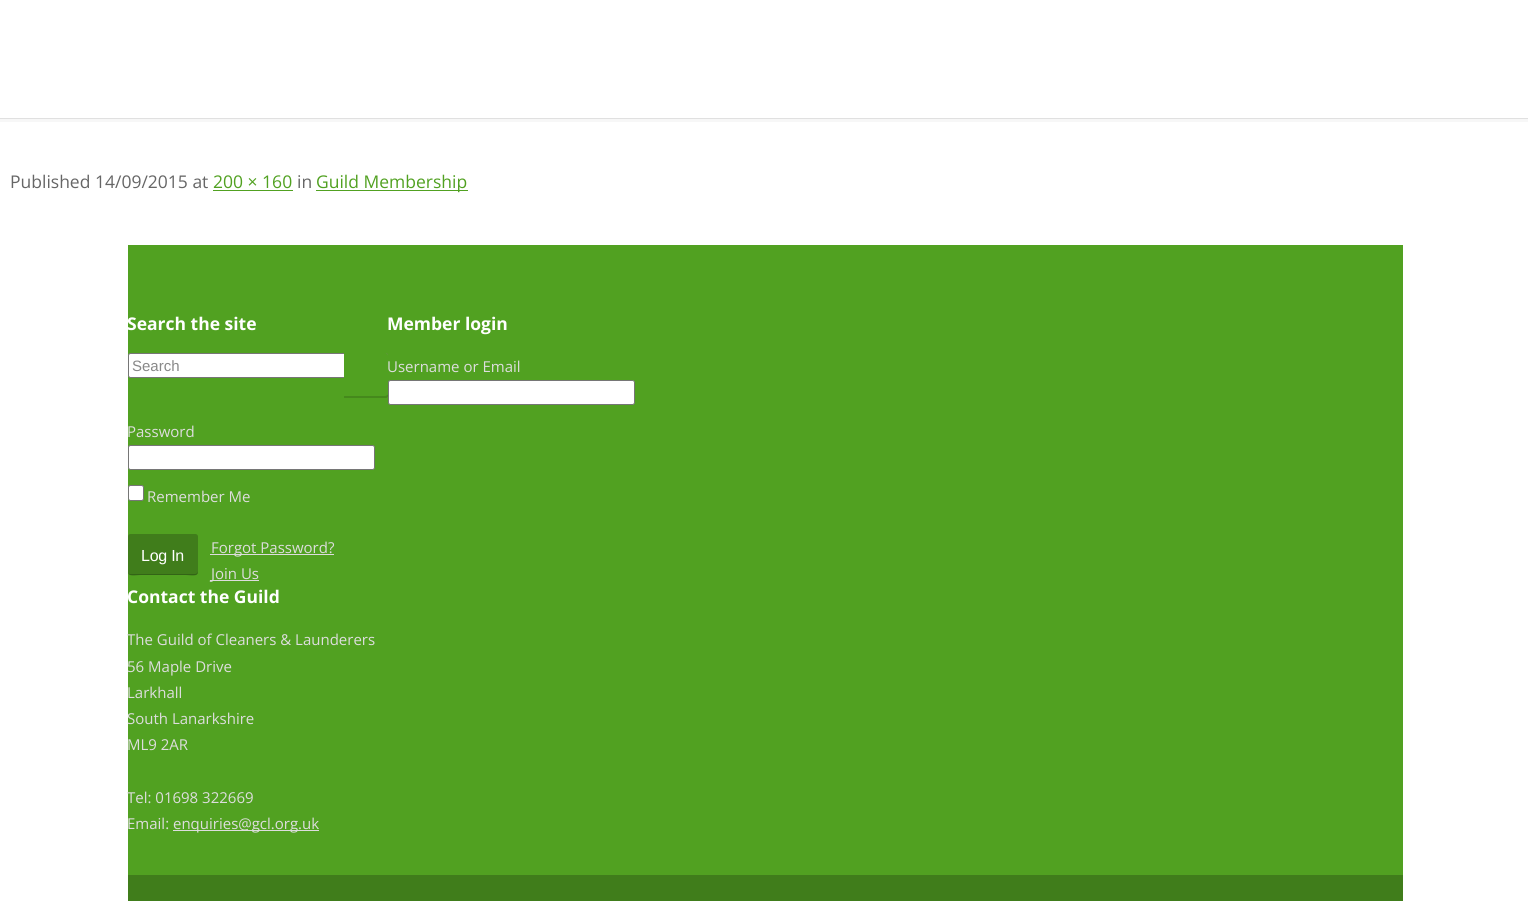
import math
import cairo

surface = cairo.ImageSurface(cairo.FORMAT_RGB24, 1528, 901)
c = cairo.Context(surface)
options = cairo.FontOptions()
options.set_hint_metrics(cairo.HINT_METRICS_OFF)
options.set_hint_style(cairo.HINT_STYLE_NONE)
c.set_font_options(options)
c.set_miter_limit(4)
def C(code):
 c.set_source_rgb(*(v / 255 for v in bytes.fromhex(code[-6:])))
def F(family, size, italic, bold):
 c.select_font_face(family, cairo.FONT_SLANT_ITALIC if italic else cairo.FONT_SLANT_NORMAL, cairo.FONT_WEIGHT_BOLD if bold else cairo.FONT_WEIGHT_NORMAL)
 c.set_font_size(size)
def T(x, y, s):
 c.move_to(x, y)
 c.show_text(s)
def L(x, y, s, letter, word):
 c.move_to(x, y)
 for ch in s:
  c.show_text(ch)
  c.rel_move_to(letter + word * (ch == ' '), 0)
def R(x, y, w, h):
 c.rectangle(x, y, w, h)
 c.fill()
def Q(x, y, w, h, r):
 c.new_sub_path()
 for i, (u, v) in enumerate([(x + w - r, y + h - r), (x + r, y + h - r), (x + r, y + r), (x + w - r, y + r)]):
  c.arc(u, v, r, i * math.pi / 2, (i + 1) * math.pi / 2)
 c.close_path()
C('ffffff')
c.paint()
C('f7f7f7')
R(0,119,1528,3)
C('e0e0e0')
R(0,118,1528,1)
F('Open Sans',17.5,0,0)
C('666666')
T(10,188,'Published 14/09/2015 at')
C('51a121')
T(213,188,'200 × 160')
R(213,190,80,1)
C('666666')
T(297,188,'in')
C('51a121')
R(316,190,152,1)
T(316,188,'Guild Membership')
R(128,245,1275,630)
F('Open Sans',17.5,0,1)
C('ffffff')
T(127,330,'Search the site')
Q(128.5,353.5,259,24,2)
c.fill_preserve()
C('767676')
c.set_line_width(1)
c.stroke()
F('Liberation Sans',15,0,0)
C('888888')
T(132,371,'Search')
C('51a121')
c.new_path()
c.move_to(344,353)
c.line_to(385.5,353)
c.curve_to(387,353,388,354,388,355.5)
c.line_to(388,395.5)
c.curve_to(388,397,387,398,385.5,398)
c.line_to(344,398)
c.close_path()
c.fill()
C('45891c')
c.new_path()
c.move_to(344,396)
c.line_to(344,398)
c.line_to(386,398)
c.curve_to(387,398,388,397,388,396)
c.line_to(388,394)
c.curve_to(388,395,386,396,385,396)
c.close_path()
c.fill()
F('Open Sans',17.5,0,1)
C('ffffff')
T(387,330,'Member login')
F('Open Sans',15,0,0)
C('dddddd')
T(387,372,'Username or Email')
C('ffffff')
Q(388.5,380.5,246,24,2)
c.fill_preserve()
C('767676')
c.stroke()
C('dddddd')
T(127,437,'Password')
C('ffffff')
Q(128.5,445.5,246,24,2)
c.fill_preserve()
C('767676')
c.stroke()
C('ffffff')
Q(128.5,485.5,15,15,2)
c.fill_preserve()
C('767676')
c.stroke()
C('dddddd')
T(147,502,'Remember Me')
C('407d1b')
Q(128,534,70,41,2.5)
c.fill()
c.set_source_rgba(0,0,0,0.2)
c.new_path()
c.move_to(128,571)
c.curve_to(128,578,136,575,141,575)
c.line_to(185,575)
c.curve_to(190,575,198,578,198,571)
c.curve_to(198,573,196,574,195,574)
c.line_to(130,574)
c.curve_to(129,574,128,573,128,571)
c.close_path()
c.fill()
F('Liberation Sans',16,0,0)
C('ffffff')
L(141,561,'Log In',-.25,0)
C('dddddd')
R(210,554,124,1)
F('Open Sans',15,0,0)
T(211,553,'Forgot Password?')
R(210,580,49,1)
T(211,579,'Join Us')
F('Open Sans',17.5,0,1)
C('ffffff')
T(127,603,'Contact the Guild')
F('Open Sans',15,0,0)
C('dddddd')
T(127,645,'The Guild of Cleaners & Launderers')
T(127,672,'56 Maple Drive')
T(127,698,'Larkhall')
T(127,724,'South Lanarkshire')
T(127,750,'ML9 2AR')
T(127,803,'Tel: 01698 322669')
T(127,829,'Email:')
R(173,830,146,1)
T(173,829,'enquiries@gcl.org.uk')
C('407d1b')
R(128,875,1275,26)
surface.write_to_png('o.png')
